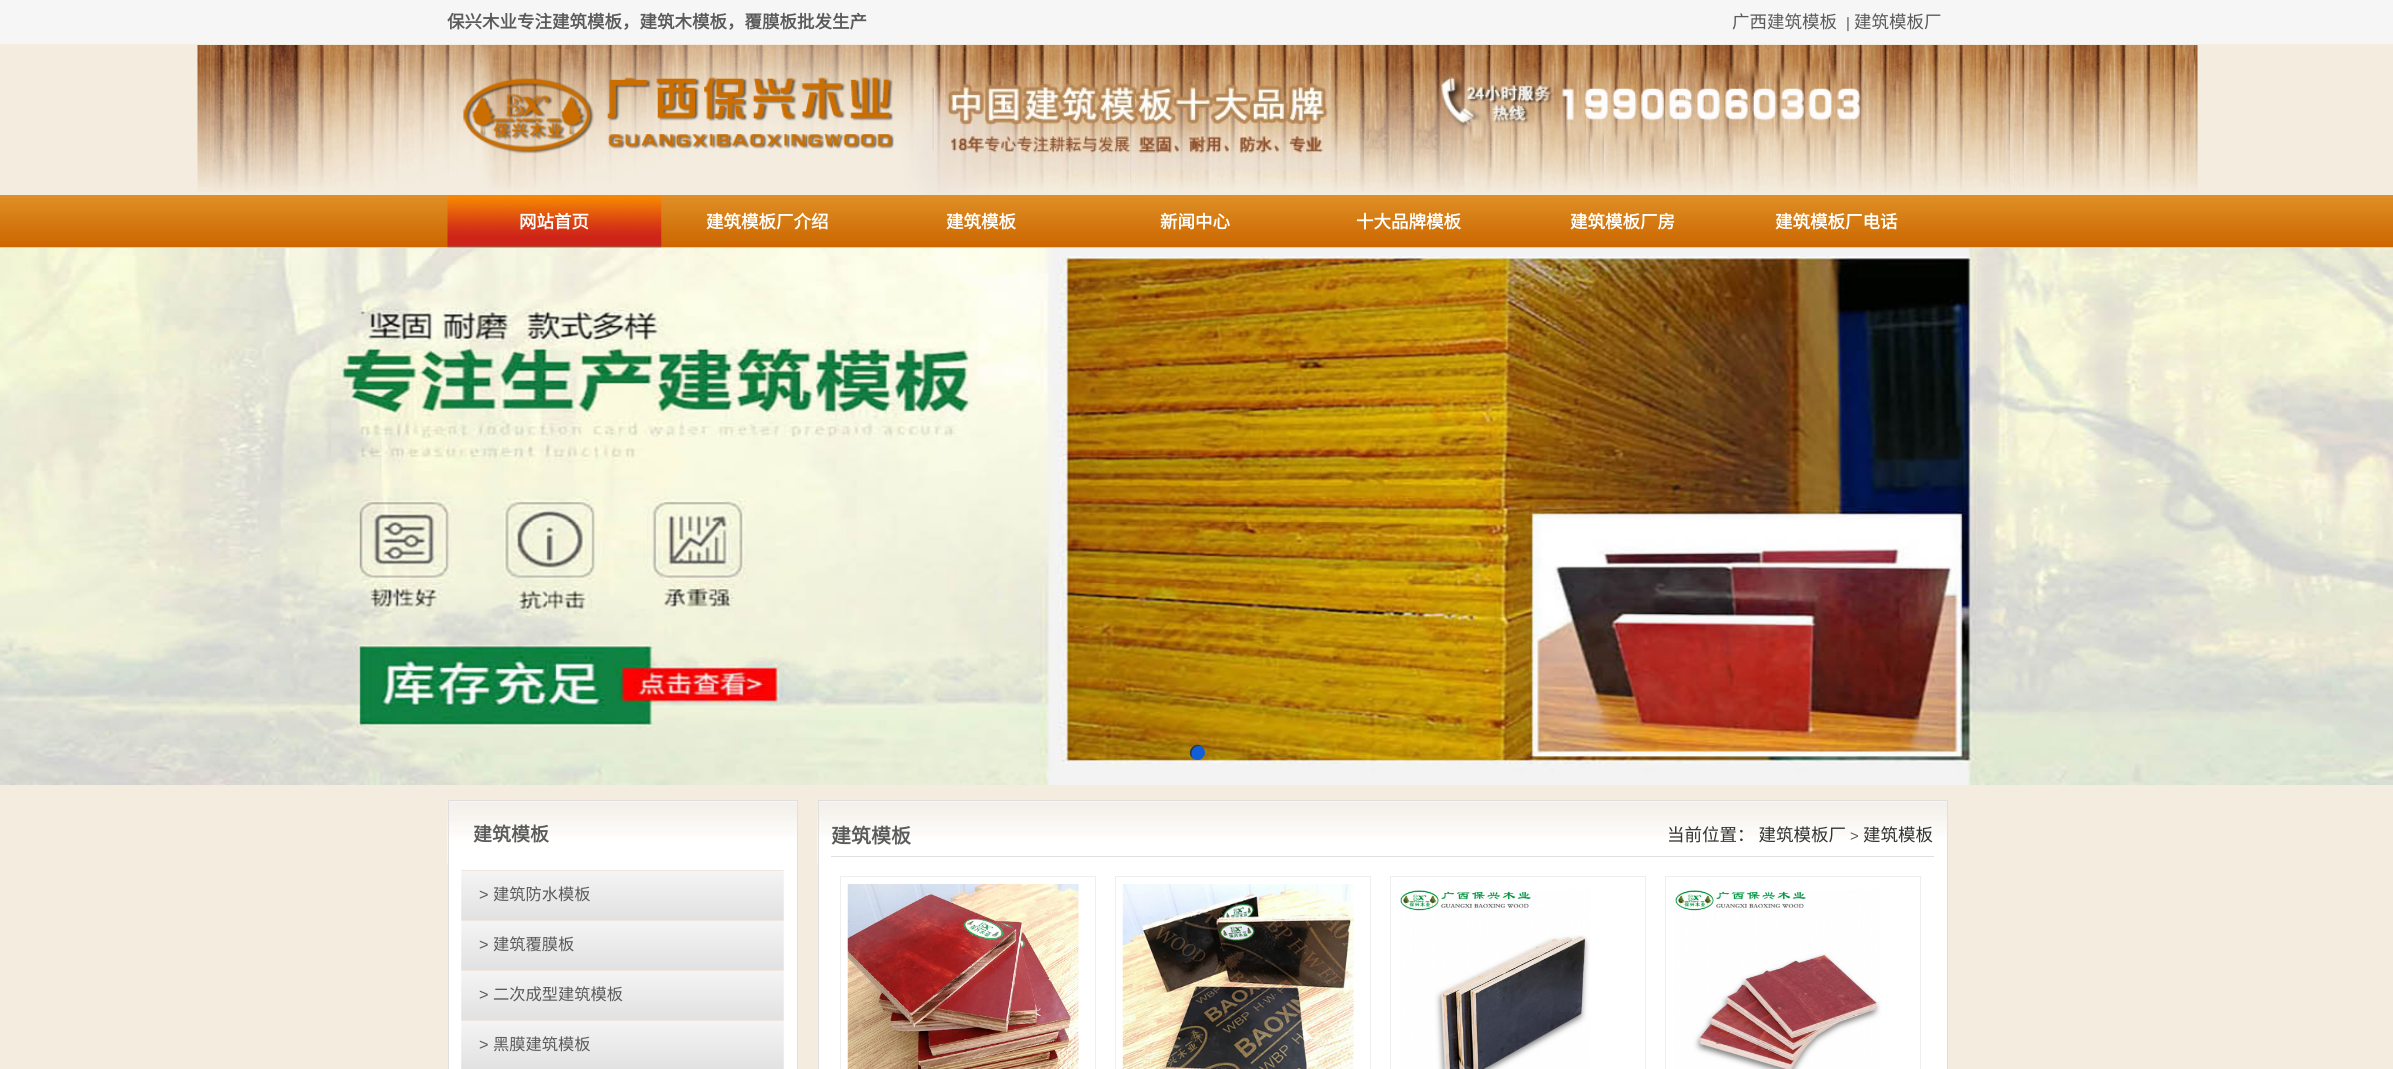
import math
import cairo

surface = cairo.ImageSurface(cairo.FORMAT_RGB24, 2393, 1069)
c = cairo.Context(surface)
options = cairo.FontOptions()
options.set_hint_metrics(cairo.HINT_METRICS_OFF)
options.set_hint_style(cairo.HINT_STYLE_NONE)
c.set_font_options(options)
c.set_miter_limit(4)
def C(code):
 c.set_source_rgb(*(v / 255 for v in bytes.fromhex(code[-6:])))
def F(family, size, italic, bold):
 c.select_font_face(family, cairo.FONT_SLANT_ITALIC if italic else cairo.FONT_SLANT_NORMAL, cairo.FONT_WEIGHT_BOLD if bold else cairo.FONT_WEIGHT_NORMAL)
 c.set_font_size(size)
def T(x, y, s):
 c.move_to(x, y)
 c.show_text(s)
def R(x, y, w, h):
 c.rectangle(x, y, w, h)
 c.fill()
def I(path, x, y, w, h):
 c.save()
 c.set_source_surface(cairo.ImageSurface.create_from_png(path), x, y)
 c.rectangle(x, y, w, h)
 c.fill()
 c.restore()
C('f4eddf')
c.paint()
C('f6f6f6')
R(0,0,2393,44)
F('Noto Sans CJK SC',17.5,0,1)
C('5a5a5a')
T(447,28,'保兴木业专注建筑模板，建筑木模板，覆膜板批发生产')
F('Noto Sans CJK SC',17.5,0,0)
T(1732,28,'广西建筑模板')
F('Liberation Sans',15,0,0)
T(1846,28,'|')
F('Noto Sans CJK SC',17.5,0,0)
T(1854,28,'建筑模板厂')
I('1.png',197,45,2001,150)
I('2.png',463,77,431,77)
I('3.png',0,195,2393,53)
I('4.png',447,195,215,53)
F('Noto Sans CJK SC',17.5,0,1)
C('ffffff')
T(519,228,'网站首页')
T(706,228,'建筑模板厂介绍')
T(946,228,'建筑模板')
T(1160,228,'新闻中心')
T(1356,228,'十大品牌模板')
T(1570,228,'建筑模板厂房')
T(1775,228,'建筑模板厂电话')
I('5.png',0,248,2393,537)
C('125ed6')
c.arc(1197.5,752.5,7.5,0,2 * math.pi)
c.fill()
C('333333')
c.new_path()
c.move_to(1199,746)
c.curve_to(1200.5,746,1201.5,746.5,1202.5,747)
c.curve_to(1194.5,739.5,1184.5,753.5,1193.5,759)
c.curve_to(1189.5,755,1191.5,746,1199,746)
c.close_path()
c.fill()
C('ffffff')
R(449,801,348,268)
I('6.png',447,801,350,63)
c.rectangle(448.5,800.5,349,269)
C('dfdfdf')
c.set_line_width(1)
c.stroke()
F('Noto Sans CJK SC',19,0,1)
C('5a5a5a')
T(473,841,'建筑模板')
I('7.png',461,870,323,50)
F('Liberation Sans',16.25,0,0)
T(479,900,'>')
F('Noto Sans CJK SC',16.25,0,0)
T(493,900,'建筑防水模板')
I('7.png',461,920,323,50)
F('Liberation Sans',16.25,0,0)
T(479,950,'>')
F('Noto Sans CJK SC',16.25,0,0)
T(493,950,'建筑覆膜板')
I('7.png',461,970,323,50)
F('Liberation Sans',16.25,0,0)
T(479,1000,'>')
F('Noto Sans CJK SC',16.25,0,0)
T(493,1000,'二次成型建筑模板')
I('8.png',461,1020,323,49)
F('Liberation Sans',16.25,0,0)
T(479,1050,'>')
F('Noto Sans CJK SC',16.25,0,0)
T(493,1050,'黑膜建筑模板')
C('ffffff')
R(819,801,1128,268)
I('9.png',817,801,1130,63)
c.rectangle(818.5,800.5,1129,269)
C('dfdfdf')
c.stroke()
R(831,856,1103,1)
F('Noto Sans CJK SC',20,0,1)
C('5a5a5a')
T(831,843,'建筑模板')
F('Noto Sans CJK SC',17.5,0,0)
C('333333')
T(1667,841,'当前位置： 建筑模板厂')
F('Liberation Sans',15,0,0)
C('5a5a5a')
T(1850,841,'>')
F('Noto Sans CJK SC',17.5,0,0)
C('333333')
T(1863,841,'建筑模板')
c.rectangle(840.5,876.5,255,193)
C('eeeeee')
c.stroke()
I('10.png',847,883,232,186)
c.rectangle(1115.5,876.5,255,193)
c.stroke()
I('11.png',1122,884,232,185)
c.rectangle(1390.5,876.5,255,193)
c.stroke()
I('12.png',1400,890,190,179)
c.rectangle(1665.5,876.5,255,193)
c.stroke()
I('13.png',1675,890,206,179)
surface.write_to_png('o.png')
